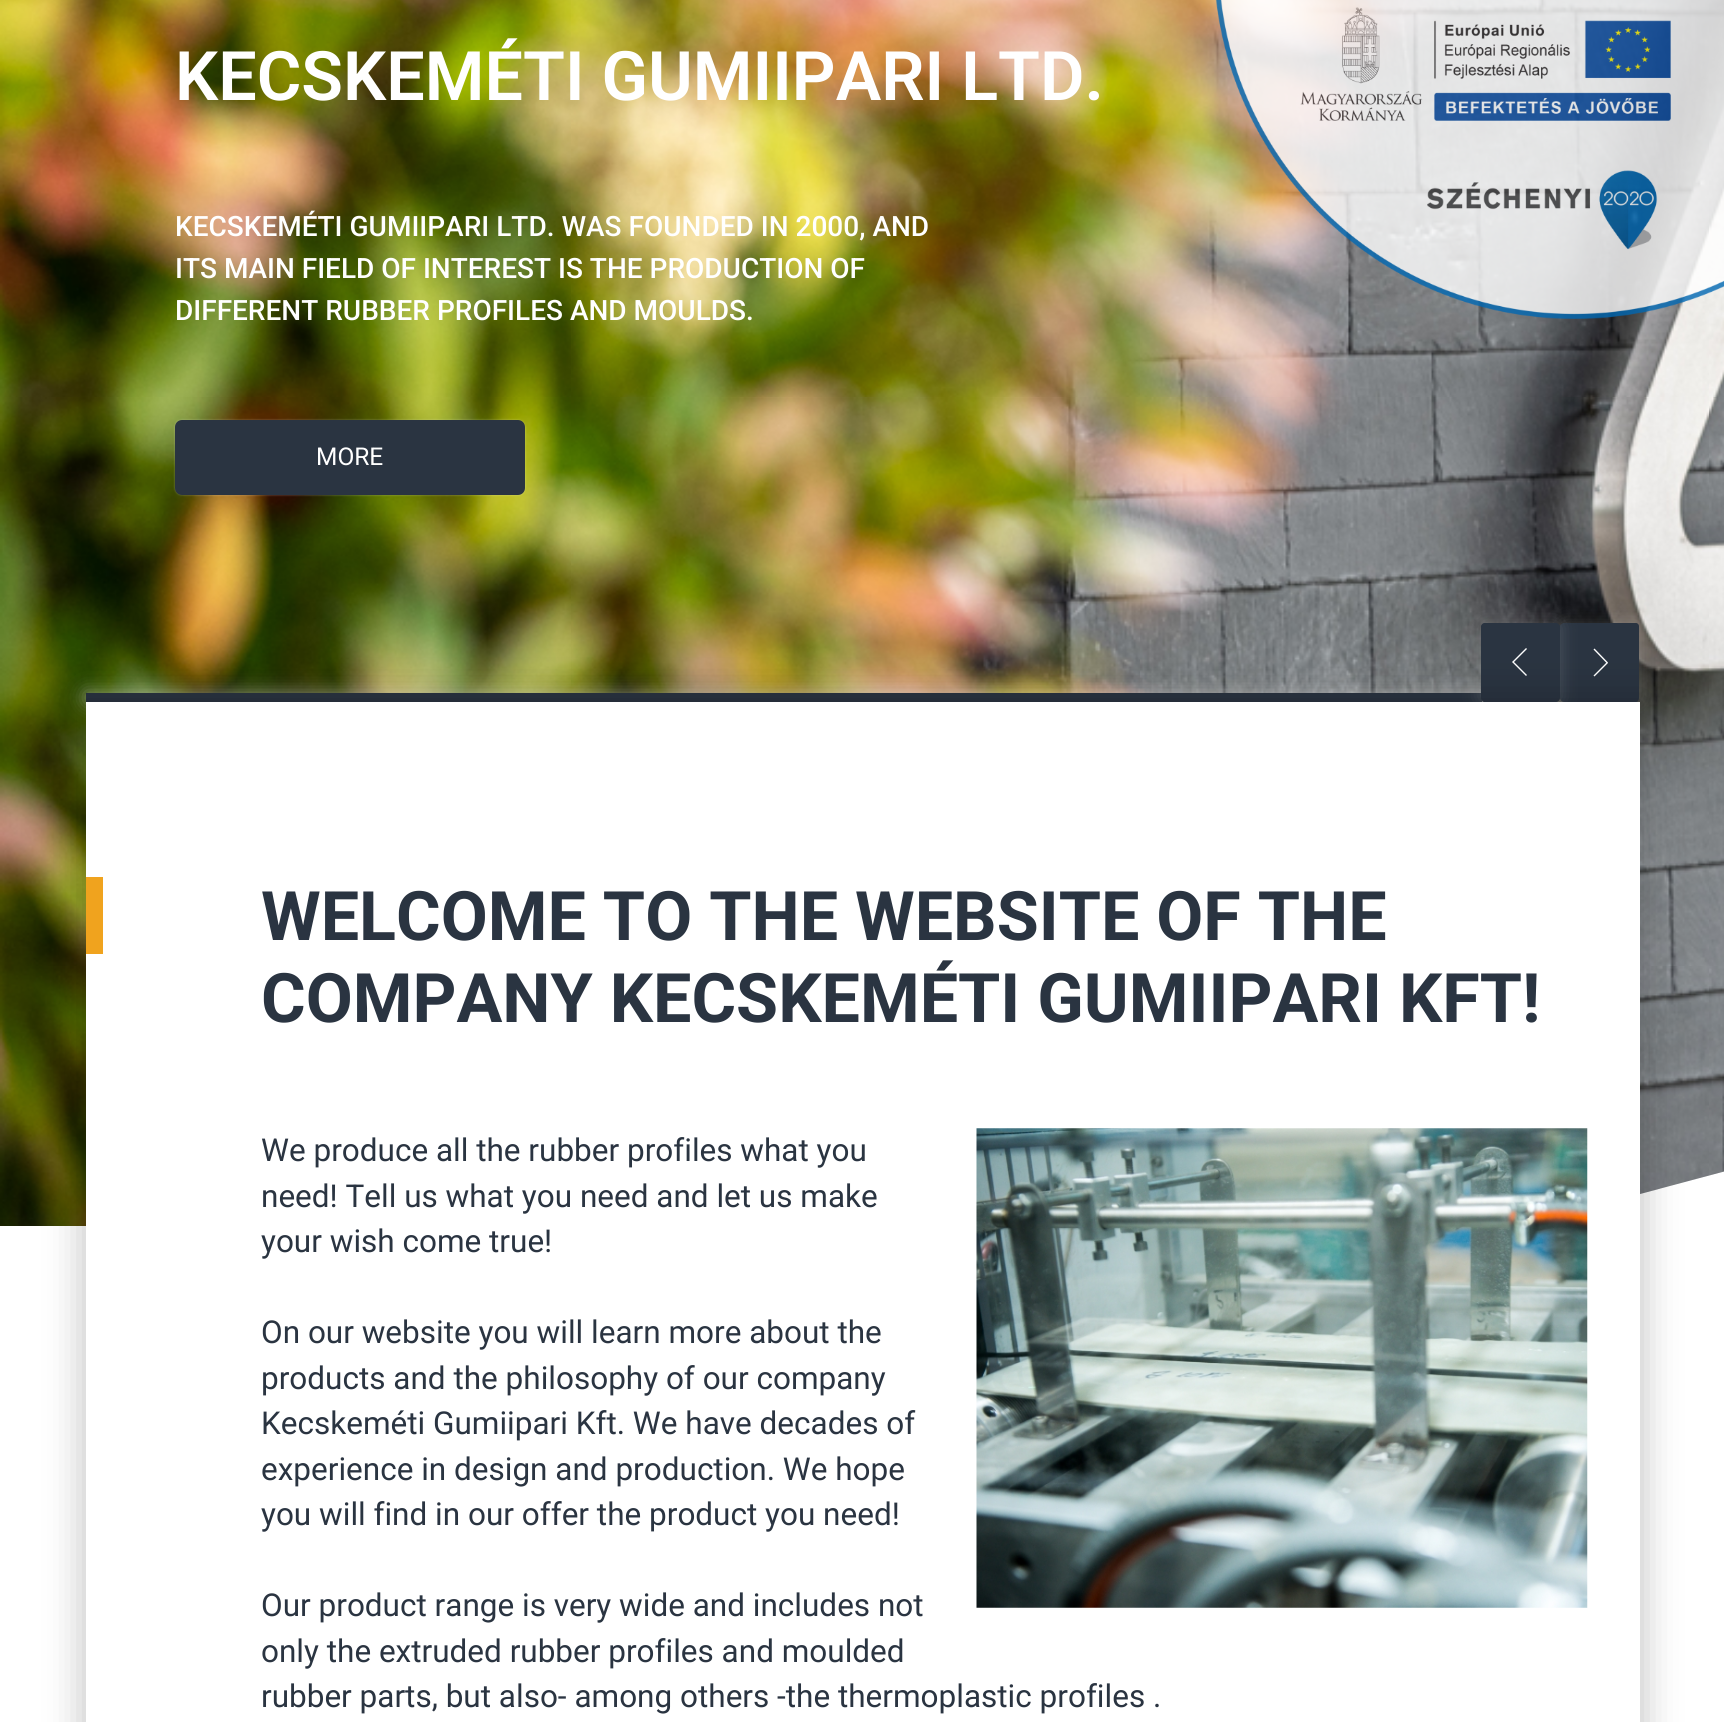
import math
import cairo

surface = cairo.ImageSurface(cairo.FORMAT_RGB24, 1724, 1722)
c = cairo.Context(surface)
options = cairo.FontOptions()
options.set_hint_metrics(cairo.HINT_METRICS_OFF)
options.set_hint_style(cairo.HINT_STYLE_NONE)
c.set_font_options(options)
c.set_miter_limit(4)
def C(code):
 c.set_source_rgb(*(v / 255 for v in bytes.fromhex(code[-6:])))
def F(family, size, italic, bold):
 c.select_font_face(family, cairo.FONT_SLANT_ITALIC if italic else cairo.FONT_SLANT_NORMAL, cairo.FONT_WEIGHT_BOLD if bold else cairo.FONT_WEIGHT_NORMAL)
 c.set_font_size(size)
def T(x, y, s):
 c.move_to(x, y)
 c.show_text(s)
def R(x, y, w, h):
 c.rectangle(x, y, w, h)
 c.fill()
def Q(x, y, w, h, r):
 c.new_sub_path()
 for i, (u, v) in enumerate([(x + w - r, y + h - r), (x + r, y + h - r), (x + r, y + r), (x + w - r, y + r)]):
  c.arc(u, v, r, i * math.pi / 2, (i + 1) * math.pi / 2)
 c.close_path()
def S(x, y, w, h, r, blur, alpha):
 c.push_group_with_content(cairo.CONTENT_ALPHA)
 c.set_operator(cairo.OPERATOR_SOURCE)
 for i in range(15, -16, -2):
  e = blur * i / 6
  if min(w, h) + 2 * e > 0:
   c.set_source_rgba(0, 0, 0, alpha * math.erfc((i - 1) / 8.5) / 2)
   Q(x - e, y - e, w + 2 * e, h + 2 * e, max(0, min(r + e + blur * .6, min(w, h) / 2 + e)))
   c.fill()
 c.mask(c.pop_group())
def I(path, x, y, w, h):
 c.save()
 c.set_source_surface(cairo.ImageSurface.create_from_png(path), x, y)
 c.rectangle(x, y, w, h)
 c.fill()
 c.restore()
C('ffffff')
c.paint()
I('2.png',0,0,1724,1226)
I('1.png',1215,0,509,319)
F('Roboto SemiBold',68.25,0,0)
C('ffffff')
T(175,100,'KECSKEMÉTI GUMIIPARI LTD.')
F('Roboto Medium',28,0,0)
T(175,236,'KECSKEMÉTI GUMIIPARI LTD. WAS FOUNDED IN 2000, AND')
T(175,278,'ITS MAIN FIELD OF INTEREST IS THE PRODUCTION OF')
T(175,320,'DIFFERENT RUBBER PROFILES AND MOULDS.')
C('ffffff')
S(175,420,350,75,7,1,.3)
C('2a3441')
Q(175,420,350,75,7)
c.fill()
F('Roboto',24.5,0,0)
C('ffffff')
T(316,465,'MORE')
C('ffffff')
S(86,693,1396,9,0,9,.5)
C('2a3441')
R(86,693,1396,9)
C('ffffff')
S(1561,623,79,79,4,9,.2)
C('2a3441')
c.new_path()
c.move_to(1560,698)
c.line_to(1560,626)
c.curve_to(1560,625,1562,623,1564,623)
c.line_to(1636,623)
c.curve_to(1638,623,1639,625,1639,626)
c.line_to(1639,698)
c.curve_to(1639,700,1638,702,1636,702)
c.line_to(1564,702)
c.curve_to(1562,702,1560,700,1560,698)
c.close_path()
c.fill()
C('ffffff')
S(1481,623,78,79,4,9,.2)
C('2a3441')
c.new_path()
c.move_to(1560,626)
c.line_to(1560,698)
c.curve_to(1560,700,1558,702,1556,702)
c.line_to(1484,702)
c.curve_to(1483,702,1481,700,1481,698)
c.line_to(1481,626)
c.curve_to(1481,625,1483,623,1484,623)
c.line_to(1556,623)
c.curve_to(1558,623,1560,625,1560,626)
c.close_path()
c.fill()
c.new_path()
c.move_to(1526.5,648.5)
c.line_to(1512.5,662.5)
c.move_to(1512.5,661.5)
c.line_to(1526.5,675.5)
C('ffffff')
c.set_line_width(1.4)
c.stroke()
c.new_path()
c.move_to(1594,676)
c.line_to(1607.5,662.5)
c.move_to(1607.5,663)
c.line_to(1594,649)
c.stroke()
c.new_path()
c.move_to(0,1633)
c.line_to(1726,1171)
c.line_to(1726,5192)
c.line_to(0,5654)
c.close_path()
c.fill()
C('000000')
S(79,695,1568,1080,0,17.5,.2)
C('ffffff')
R(86,702,1554,1020)
C('f0a31e')
R(86,877,17,77)
F('Roboto',68.25,0,1)
C('2a3441')
T(261,940,'WELCOME TO THE WEBSITE OF THE')
T(261,1022,'COMPANY KECSKEMÉTI GUMIIPARI KFT!')
F('Roboto',31.5,0,0)
T(261,1161,'We produce all the rubber profiles what you')
T(261,1207,'need! Tell us what you need and let us make')
T(261,1252,'your wish come true!')
T(261,1343,'On our website you will learn more about the')
T(261,1389,'products and the philosophy of our company')
T(261,1434,'Kecskeméti Gumiipari Kft. We have decades of')
T(261,1480,'experience in design and production. We hope')
T(261,1525,'you will find in our offer the product you need!')
T(261,1616,'Our product range is very wide and includes not')
T(261,1662,'only the extruded rubber profiles and moulded')
T(261,1707,'rubber parts, but also- among others -the thermoplastic profiles .')
I('3.png',976,1128,612,480)
surface.write_to_png('o.png')
